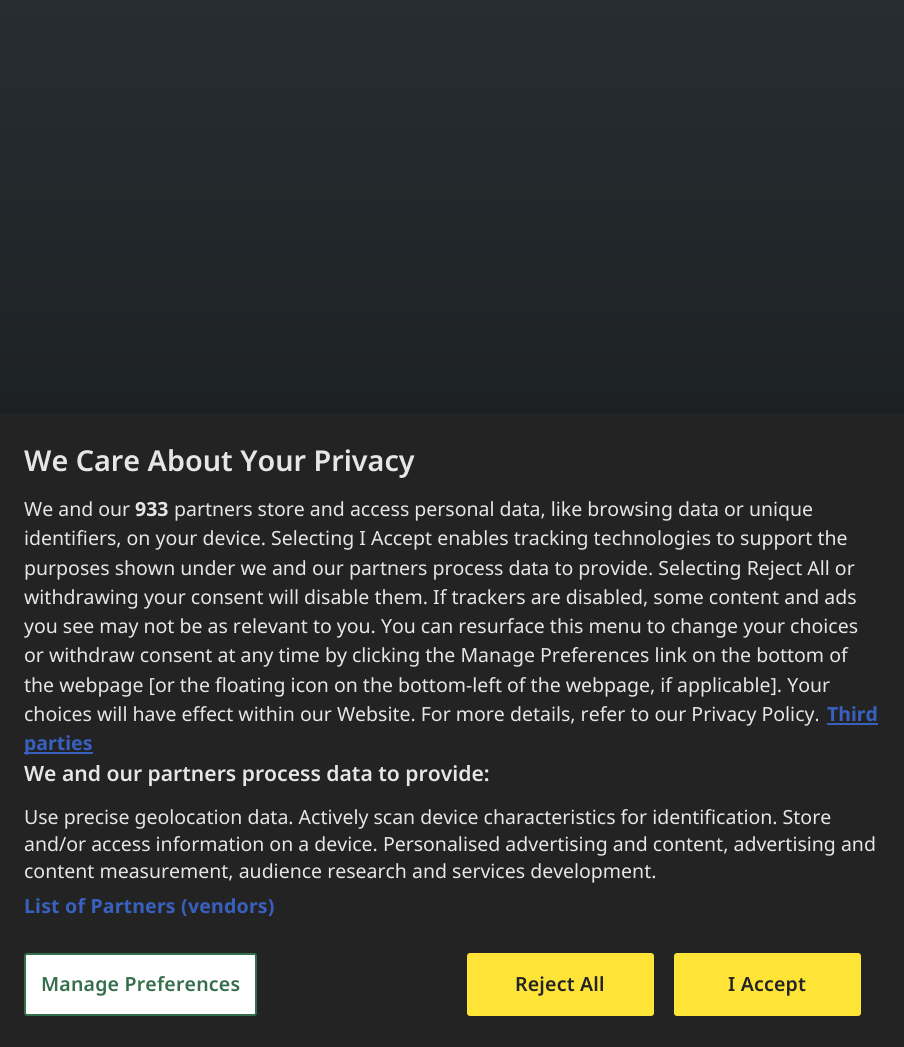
import math
import cairo

surface = cairo.ImageSurface(cairo.FORMAT_RGB24, 904, 1047)
c = cairo.Context(surface)
options = cairo.FontOptions()
options.set_hint_metrics(cairo.HINT_METRICS_OFF)
options.set_hint_style(cairo.HINT_STYLE_NONE)
c.set_font_options(options)
c.set_miter_limit(4)
def C(code):
 c.set_source_rgb(*(v / 255 for v in bytes.fromhex(code[-6:])))
def F(family, size, italic, bold):
 c.select_font_face(family, cairo.FONT_SLANT_ITALIC if italic else cairo.FONT_SLANT_NORMAL, cairo.FONT_WEIGHT_BOLD if bold else cairo.FONT_WEIGHT_NORMAL)
 c.set_font_size(size)
def T(x, y, s):
 c.move_to(x, y)
 c.show_text(s)
def L(x, y, s, letter, word):
 c.move_to(x, y)
 for ch in s:
  c.show_text(ch)
  c.rel_move_to(letter + word * (ch == ' '), 0)
def R(x, y, w, h):
 c.rectangle(x, y, w, h)
 c.fill()
def Q(x, y, w, h, r):
 c.new_sub_path()
 for i, (u, v) in enumerate([(x + w - r, y + h - r), (x + r, y + h - r), (x + r, y + r), (x + w - r, y + r)]):
  c.arc(u, v, r, i * math.pi / 2, (i + 1) * math.pi / 2)
 c.close_path()
def S(x, y, w, h, r, blur, alpha):
 c.push_group_with_content(cairo.CONTENT_ALPHA)
 c.set_operator(cairo.OPERATOR_SOURCE)
 for i in range(15, -16, -2):
  e = blur * i / 6
  if min(w, h) + 2 * e > 0:
   c.set_source_rgba(0, 0, 0, alpha * math.erfc((i - 1) / 8.5) / 2)
   Q(x - e, y - e, w + 2 * e, h + 2 * e, max(0, min(r + e + blur * .6, min(w, h) / 2 + e)))
   c.fill()
 c.mask(c.pop_group())
C('ffffff')
c.paint()
gradient = cairo.LinearGradient(452,0,452,1047)
gradient.add_color_stop_rgba(0,0.153,0.176,0.192,1)
gradient.add_color_stop_rgba(1,0.059,0.067,0.071,1)
c.set_source(gradient)
R(0,0,904,413)
C('000000')
S(0,413,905,634,0,13.5,.2)
C('232323')
R(0,413,904,634)
F('Noto Sans SemiBold',28.75,0,0)
C('e6e6e6')
T(24,471,'We Care About Your Privacy')
F('Noto Sans',19.5,0,0)
T(24,516,'We and our')
F('Noto Sans',19.5,0,1)
T(135,516,'933')
F('Noto Sans',19.5,0,0)
T(174,516,'partners store and access personal data, like browsing data or unique')
T(24,545,'identifiers, on your device. Selecting I Accept enables tracking technologies to support the')
T(24,575,'purposes shown under we and our partners process data to provide. Selecting Reject All or')
T(24,604,'withdrawing your consent will disable them. If trackers are disabled, some content and ads')
T(24,633,'you see may not be as relevant to you. You can resurface this menu to change your choices')
T(24,662,'or withdraw consent at any time by clicking the Manage Preferences link on the bottom of')
T(24,692,'the webpage [or the floating icon on the bottom-left of the webpage, if applicable]. Your')
T(24,721,'choices will have effect within our Website. For more details, refer to our Privacy Policy.')
F('Noto Sans',19.5,0,1)
C('3860be')
T(827,721,'Third')
R(827,723,51,2)
R(24,752,69,2)
T(24,750,'parties')
F('Noto Sans SemiBold',21.1,0,0)
C('e6e6e6')
T(24,781,'We and our partners process data to provide:')
F('Noto Sans',19.5,0,0)
T(24,824,'Use precise geolocation data. Actively scan device characteristics for identification. Store')
T(24,851,'and/or access information on a device. Personalised advertising and content, advertising and')
T(24,878,'content measurement, audience research and services development.')
F('Noto Sans',19.5,0,1)
C('3860be')
L(24,913,'List of Partners (vendors)',.2,0)
C('ffffff')
Q(25,954,231,61,2)
c.fill_preserve()
C('346e4a')
c.stroke()
F('Noto Sans SemiBold',19.5,0,0)
L(41,991,'Manage Preferences',.2,0)
C('ffe438')
Q(468,954,185,61,2)
c.fill_preserve()
c.stroke()
C('232323')
L(515,991,'Reject All',.2,0)
C('ffe438')
Q(675,954,185,61,2)
c.fill_preserve()
c.stroke()
C('232323')
L(728,991,'I Accept',.2,0)
surface.write_to_png('o.png')
